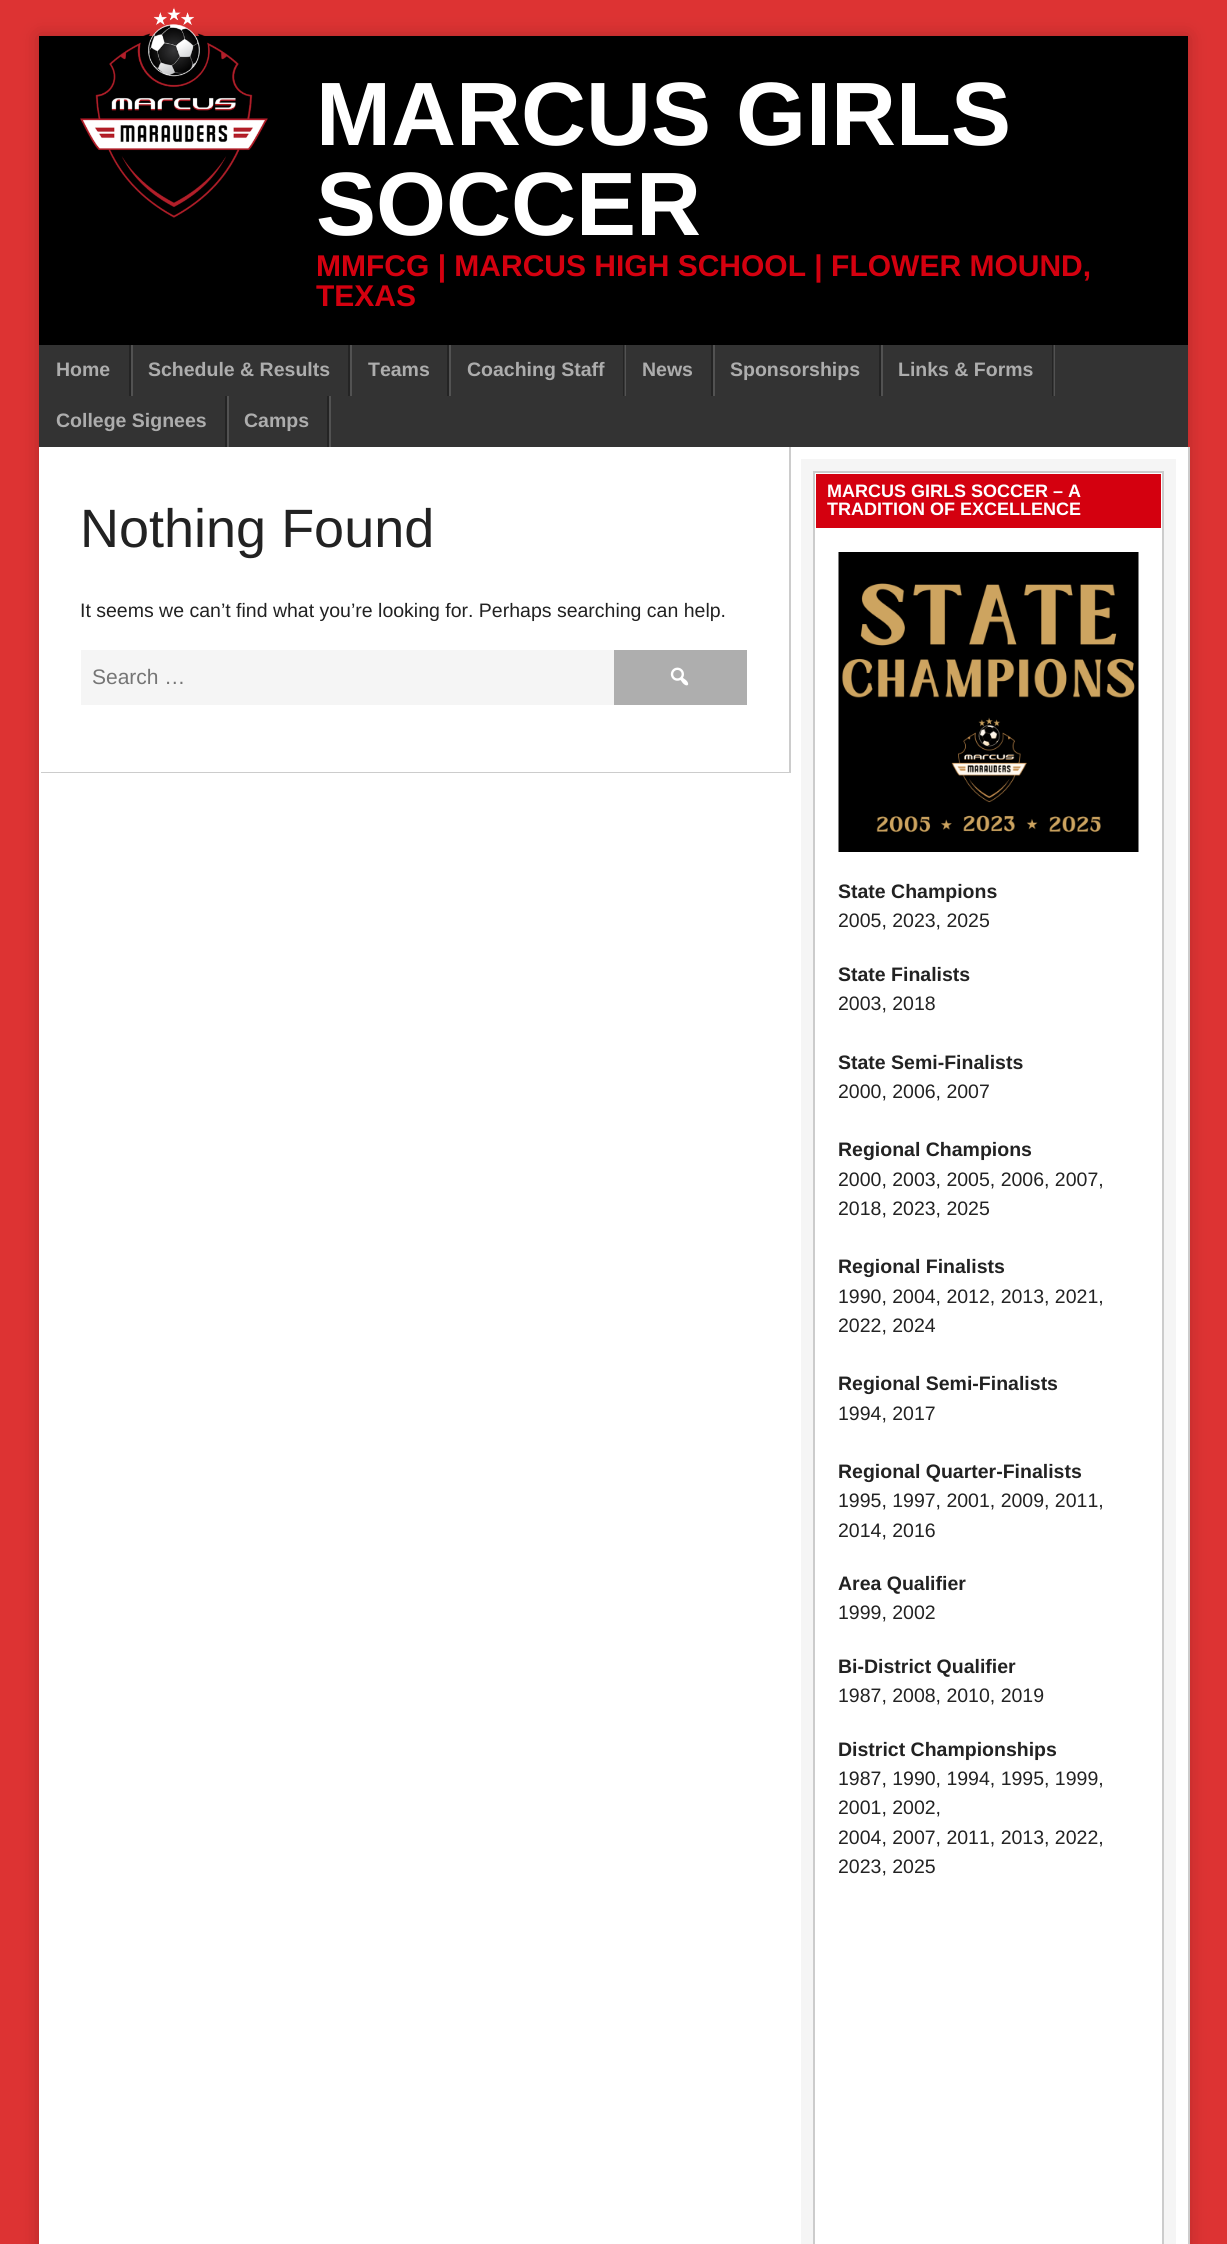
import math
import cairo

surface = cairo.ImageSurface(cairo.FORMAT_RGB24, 1227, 2244)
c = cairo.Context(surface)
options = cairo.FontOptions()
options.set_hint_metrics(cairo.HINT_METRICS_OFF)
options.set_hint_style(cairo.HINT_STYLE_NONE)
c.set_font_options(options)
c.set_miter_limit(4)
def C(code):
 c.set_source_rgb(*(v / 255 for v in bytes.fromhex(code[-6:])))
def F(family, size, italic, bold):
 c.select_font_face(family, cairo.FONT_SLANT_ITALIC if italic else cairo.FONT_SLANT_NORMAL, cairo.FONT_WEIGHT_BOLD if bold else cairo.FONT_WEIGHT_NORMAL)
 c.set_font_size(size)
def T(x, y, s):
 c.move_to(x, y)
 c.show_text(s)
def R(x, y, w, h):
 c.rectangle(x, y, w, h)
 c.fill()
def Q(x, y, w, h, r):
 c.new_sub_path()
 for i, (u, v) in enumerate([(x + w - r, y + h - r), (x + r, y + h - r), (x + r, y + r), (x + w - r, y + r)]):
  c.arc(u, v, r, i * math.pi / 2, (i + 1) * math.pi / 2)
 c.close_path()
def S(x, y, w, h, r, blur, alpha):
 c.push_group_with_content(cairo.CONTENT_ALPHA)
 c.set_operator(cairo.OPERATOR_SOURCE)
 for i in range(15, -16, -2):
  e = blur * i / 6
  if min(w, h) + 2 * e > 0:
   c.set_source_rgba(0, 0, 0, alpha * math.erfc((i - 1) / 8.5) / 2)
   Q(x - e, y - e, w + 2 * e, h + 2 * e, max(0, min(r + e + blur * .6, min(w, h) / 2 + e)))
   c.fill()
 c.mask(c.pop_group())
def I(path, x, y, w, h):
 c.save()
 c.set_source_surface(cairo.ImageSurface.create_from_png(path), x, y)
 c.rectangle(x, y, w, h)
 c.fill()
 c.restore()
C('dd3333')
c.paint()
C('000000')
S(39,36,1149,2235,0,9,.2)
C('000000')
R(39,36,1149,309)
I('1.png',80,7,188,211)
F('Liberation Sans',90,0,1)
C('ffffff')
T(316,145,'MARCUS GIRLS')
T(316,235,'SOCCER')
F('Liberation Sans',30,0,1)
C('d4000f')
T(316,276,'MMFCG | MARCUS HIGH SCHOOL | FLOWER MOUND,')
T(316,306,'TEXAS')
C('333333')
R(39,345,1149,102)
C('242424')
R(1052,345,1,51)
R(623,345,1,51)
C('525252')
R(131,345,2,51)
C('242424')
R(129,345,2,51)
F('Liberation Sans',19.5,0,1)
C('adadad')
T(56,376,'Home')
C('525252')
R(350,345,2,51)
C('242424')
R(348,345,2,51)
C('adadad')
T(148,376,'Schedule & Results')
C('525252')
R(449,345,2,51)
C('242424')
R(447,345,2,51)
C('adadad')
T(368,376,'Teams')
C('525252')
R(625,345,1,51)
C('393939')
R(624,345,1,51)
C('adadad')
T(467,376,'Coaching Staff')
C('525252')
R(713,345,2,51)
C('242424')
R(711,345,2,51)
C('adadad')
T(642,376,'News')
C('525252')
R(881,345,2,51)
C('242424')
R(879,345,2,51)
C('adadad')
T(730,376,'Sponsorships')
C('525252')
R(1054,345,1,51)
C('393939')
R(1053,345,1,51)
C('adadad')
T(898,376,'Links & Forms')
C('525252')
R(227,396,2,51)
C('242424')
R(225,396,2,51)
C('adadad')
T(56,427,'College Signees')
C('525252')
R(329,396,2,51)
C('242424')
R(327,396,2,51)
C('adadad')
T(244,427,'Camps')
C('ffffff')
R(39,447,1149,1797)
C('cccccc')
c.new_path()
c.move_to(41,772)
c.line_to(41,773)
c.line_to(791,773)
c.line_to(791,447)
c.line_to(789,447)
c.line_to(789,772)
c.close_path()
c.fill()
F('Liberation Sans',54,0,0)
C('222222')
T(80,547,'Nothing Found')
F('Liberation Sans',19.5,0,0)
T(80,617,'It seems we can’t find what you’re looking for. Perhaps searching can help.')
C('f5f5f5')
R(81,650,533,55)
F('Liberation Sans',21,0,0)
C('757575')
T(92,684,'Search …')
C('aeaeae')
R(614,650,133,55)
I('2.png',670,667,19,19)
C('cccccc')
R(1188,447,2,1797)
c.rectangle(814,472,349,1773)
c.stroke()
C('d4000f')
R(816,474,345,54)
I('3.png',838,552,301,300)
c.rectangle(807,465,363,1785)
C('f5f5f5')
c.set_line_width(12)
c.stroke()
F('Liberation Sans',18,0,1)
C('ffffff')
T(827,497,'MARCUS GIRLS SOCCER – A')
T(827,515,'TRADITION OF EXCELLENCE')
F('Liberation Sans',19.5,0,1)
C('222222')
T(838,898,'State Champions')
F('Liberation Sans',19.5,0,0)
T(838,927,'2005, 2023, 2025')
F('Liberation Sans',19.5,0,1)
T(838,981,'State Finalists')
F('Liberation Sans',19.5,0,0)
T(838,1010,'2003, 2018')
F('Liberation Sans',19.5,0,1)
T(838,1069,'State Semi-Finalists')
F('Liberation Sans',19.5,0,0)
T(838,1098,'2000, 2006, 2007')
F('Liberation Sans',19.5,0,1)
T(838,1156,'Regional Champions')
F('Liberation Sans',19.5,0,0)
T(838,1186,'2000, 2003, 2005, 2006, 2007,')
T(838,1215,'2018, 2023, 2025')
F('Liberation Sans',19.5,0,1)
T(838,1273,'Regional Finalists')
F('Liberation Sans',19.5,0,0)
T(838,1303,'1990, 2004, 2012, 2013, 2021,')
T(838,1332,'2022, 2024')
F('Liberation Sans',19.5,0,1)
T(838,1390,'Regional Semi-Finalists')
F('Liberation Sans',19.5,0,0)
T(838,1420,'1994, 2017')
F('Liberation Sans',19.5,0,1)
T(838,1478,'Regional Quarter-Finalists')
F('Liberation Sans',19.5,0,0)
T(838,1507,'1995, 1997, 2001, 2009, 2011,')
T(838,1537,'2014, 2016')
F('Liberation Sans',19.5,0,1)
T(838,1590,'Area Qualifier')
F('Liberation Sans',19.5,0,0)
T(838,1619,'1999, 2002')
F('Liberation Sans',19.5,0,1)
T(838,1673,'Bi-District Qualifier')
F('Liberation Sans',19.5,0,0)
T(838,1702,'1987, 2008, 2010, 2019')
F('Liberation Sans',19.5,0,1)
T(838,1756,'District Championships')
F('Liberation Sans',19.5,0,0)
T(838,1785,'1987, 1990, 1994, 1995, 1999,')
T(838,1814,'2001, 2002,')
T(838,1844,'2004, 2007, 2011, 2013, 2022,')
T(838,1873,'2023, 2025')
surface.write_to_png('o.png')
